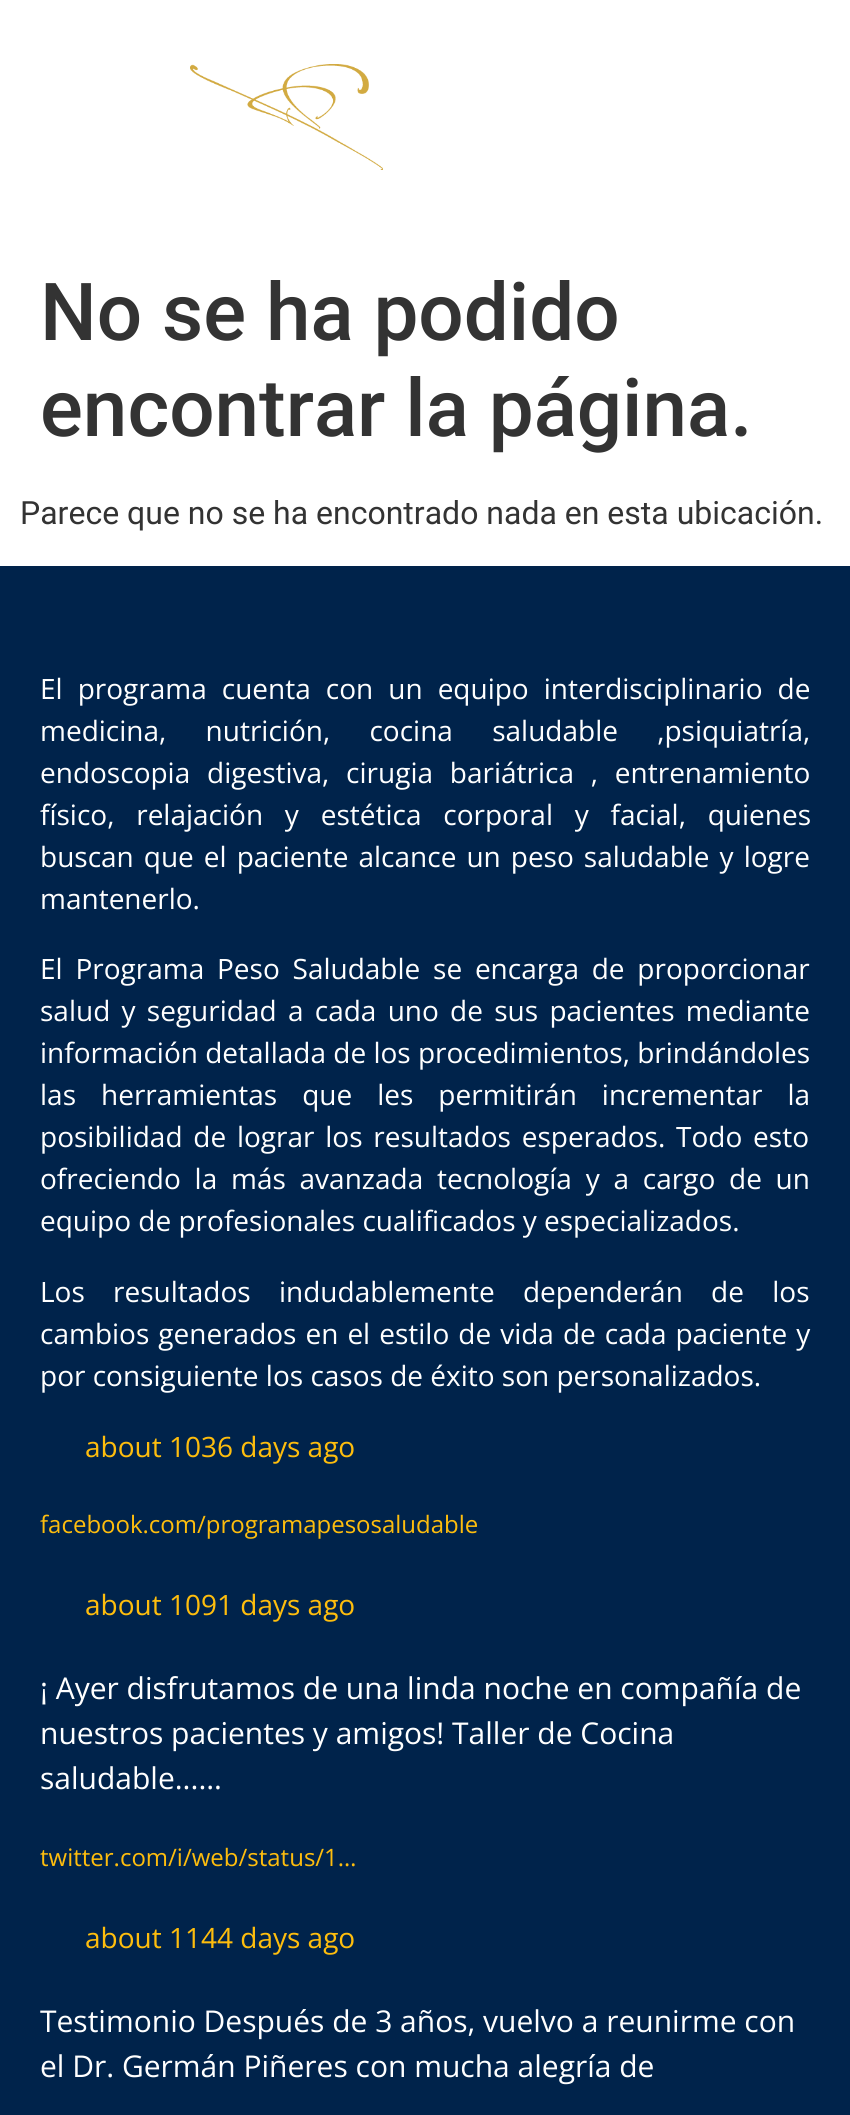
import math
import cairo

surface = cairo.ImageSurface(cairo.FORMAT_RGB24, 850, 2115)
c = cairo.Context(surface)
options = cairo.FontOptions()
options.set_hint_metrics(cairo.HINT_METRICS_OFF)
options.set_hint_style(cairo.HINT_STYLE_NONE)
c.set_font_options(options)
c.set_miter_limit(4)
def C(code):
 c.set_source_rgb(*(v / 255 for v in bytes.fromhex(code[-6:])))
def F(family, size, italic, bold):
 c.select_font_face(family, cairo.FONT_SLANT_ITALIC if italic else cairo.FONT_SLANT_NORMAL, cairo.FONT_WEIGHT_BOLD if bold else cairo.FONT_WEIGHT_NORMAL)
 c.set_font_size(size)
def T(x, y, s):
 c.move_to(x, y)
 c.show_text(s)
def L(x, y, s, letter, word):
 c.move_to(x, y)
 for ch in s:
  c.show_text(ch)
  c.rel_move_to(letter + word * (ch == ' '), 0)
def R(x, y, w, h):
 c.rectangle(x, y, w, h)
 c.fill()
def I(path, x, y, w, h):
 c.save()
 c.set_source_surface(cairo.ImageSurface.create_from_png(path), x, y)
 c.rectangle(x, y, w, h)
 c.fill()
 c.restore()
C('ffffff')
c.paint()
I('1.png',190,64,193,106)
F('Roboto Medium',80,0,0)
C('333333')
T(40,340,'No se ha podido')
T(40,436,'encontrar la página.')
F('Roboto',32,0,0)
T(20,524,'Parece que no se ha encontrado nada en esta ubicación.')
C('00234b')
R(0,566,850,1549)
F('Open Sans',28,0,0)
C('ffffff')
L(40,699,'El programa cuenta con un equipo interdisciplinario de',0,7.75)
L(40,741,'medicina, nutrición, cocina saludable ,psiquiatría,',0,32)
L(40,783,'endoscopia digestiva, cirugia bariátrica , entrenamiento',0,9.5)
L(40,825,'físico, relajación y estética corporal y facial, quienes',0,14.5)
L(40,867,'buscan que el paciente alcance un peso saludable y logre',0,2.75)
T(40,909,'mantenerlo.')
L(40,979,'El Programa Peso Saludable se encarga de proporcionar',0,5.5)
L(40,1021,'salud y seguridad a cada uno de sus pacientes mediante',0,4)
T(40,1063,'información detallada de los procedimientos, brindándoles')
L(40,1105,'las herramientas que les permitirán incrementar la',0,17.75)
L(40,1147,'posibilidad de lograr los resultados esperados. Todo esto',0,3.5)
L(40,1189,'ofreciendo la más avanzada tecnología y a cargo de un',0,6.5)
T(40,1231,'equipo de profesionales cualificados y especializados.')
L(40,1302,'Los resultados indudablemente dependerán de los',0,21)
L(40,1344,'cambios generados en el estilo de vida de cada paciente y',0,1.75)
T(40,1386,'por consiguiente los casos de éxito son personalizados.')
C('febd0d')
T(85,1457,'about 1036 days ago')
F('Open Sans',24,0,0)
T(40,1533,'facebook.com/programapesosaludable')
F('Open Sans',28,0,0)
T(85,1615,'about 1091 days ago')
F('Open Sans',30,0,0)
C('ffffff')
T(40,1699,'¡ Ayer disfrutamos de una linda noche en compañía de')
T(40,1744,'nuestros pacientes y amigos! Taller de Cocina')
T(40,1789,'saludable...…')
F('Open Sans',24,0,0)
C('febd0d')
T(40,1866,'twitter.com/i/web/status/1…')
F('Open Sans',28,0,0)
T(85,1948,'about 1144 days ago')
F('Open Sans',30,0,0)
C('ffffff')
T(40,2032,'Testimonio Después de 3 años, vuelvo a reunirme con')
T(40,2077,'el Dr. Germán Piñeres con mucha alegría de')
surface.write_to_png('o.png')
